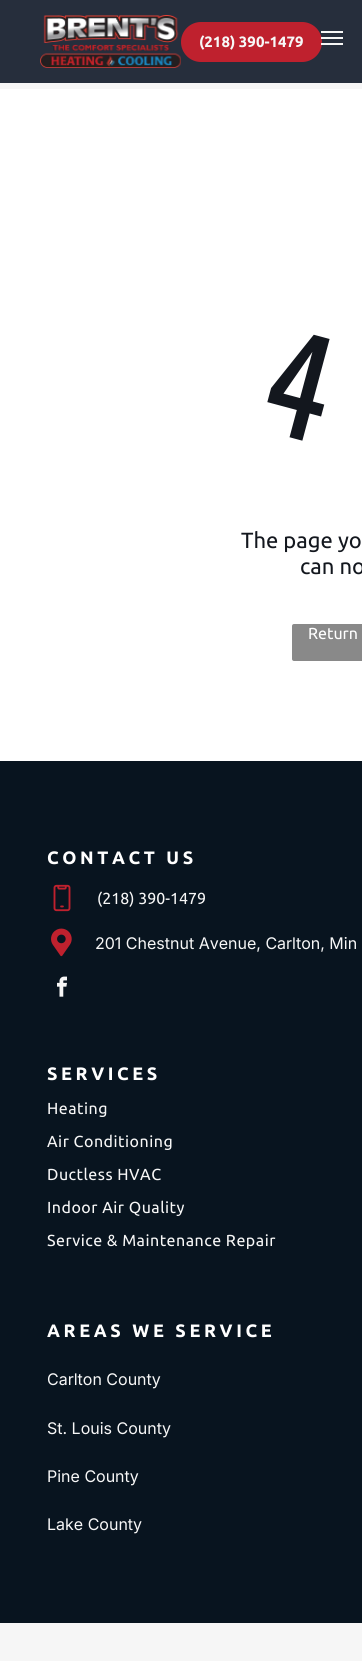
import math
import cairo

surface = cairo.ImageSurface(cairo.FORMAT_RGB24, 362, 1661)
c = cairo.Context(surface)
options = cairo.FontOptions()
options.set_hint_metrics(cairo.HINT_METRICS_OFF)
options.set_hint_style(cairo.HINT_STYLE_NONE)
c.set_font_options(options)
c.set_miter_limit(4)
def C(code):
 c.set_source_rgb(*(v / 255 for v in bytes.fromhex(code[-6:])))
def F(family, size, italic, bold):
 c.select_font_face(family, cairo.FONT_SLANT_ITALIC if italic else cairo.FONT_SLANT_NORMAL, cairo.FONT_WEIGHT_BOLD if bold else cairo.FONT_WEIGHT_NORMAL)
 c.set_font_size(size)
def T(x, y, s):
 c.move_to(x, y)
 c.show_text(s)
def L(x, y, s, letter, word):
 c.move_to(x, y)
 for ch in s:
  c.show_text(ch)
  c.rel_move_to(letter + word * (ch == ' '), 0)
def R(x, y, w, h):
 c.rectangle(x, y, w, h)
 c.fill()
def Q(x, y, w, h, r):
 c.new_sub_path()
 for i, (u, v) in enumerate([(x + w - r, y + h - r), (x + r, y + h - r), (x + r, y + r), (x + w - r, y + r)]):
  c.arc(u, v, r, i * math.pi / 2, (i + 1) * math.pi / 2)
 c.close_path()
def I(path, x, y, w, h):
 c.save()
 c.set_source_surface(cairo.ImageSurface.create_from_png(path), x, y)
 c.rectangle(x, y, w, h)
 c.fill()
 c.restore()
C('f6f6f6')
c.paint()
C('262e3c')
R(0,0,362,83)
I('1.png',40,15,141,53)
C('bf212e')
Q(181,22,141,40,20)
c.fill()
F('Ubuntu',15,0,1)
C('f7f7f7')
T(199,47,'(218) 390-1479')
C('f6f6f6')
R(321,31,22,2)
R(321,37,22,2)
R(321,43,22,2)
C('ffffff')
R(0,89,362,672)
F('Oswald',130,0,0)
C('13171e')
c.save()
c.translate(255,428)
c.rotate(15 * math.pi / 180)
T(0,0,'4')
c.restore()
F('Ubuntu',22,0,0)
T(241,548,'The page yo')
T(300,574,'can no')
C('898989')
Q(292,624,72,37,2)
c.fill()
F('Ubuntu',16,0,0)
C('ffffff')
T(308,639,'Return')
C('08141f')
R(0,761,362,862)
F('Ubuntu',18,0,1)
C('ffffff')
L(47,864,'CONTACT US',3.6,0)
I('2.png',53,884,18,28)
F('Ubuntu',16,0,0)
C('f7f7f7')
T(97,904,'(218) 390-1479')
I('3.png',51,928,21,29)
F('Inter',16,0,0)
T(95,949,'201 Chestnut Avenue, Carlton, Min')
I('4.png',57,976,10,21)
F('Ubuntu',18,0,1)
C('ffffff')
L(47,1080,'SERVICES',3.6,0)
F('Ubuntu',16,0,0)
C('f7f7f7')
L(47,1114,'Heating',.5,0)
L(47,1147,'Air Conditioning',.5,0)
L(47,1180,'Ductless HVAC',.5,0)
L(47,1213,'Indoor Air Quality',.5,0)
L(47,1246,'Service & Maintenance Repair',.5,0)
F('Ubuntu',18,0,1)
C('ffffff')
L(47,1337,'AREAS WE SERVICE',3.6,0)
F('Inter',16,0,0)
C('f7f7f7')
T(47,1385,'Carlton County')
T(47,1434,'St. Louis County')
T(47,1482,'Pine County')
T(47,1530,'Lake County')
surface.write_to_png('o.png')
